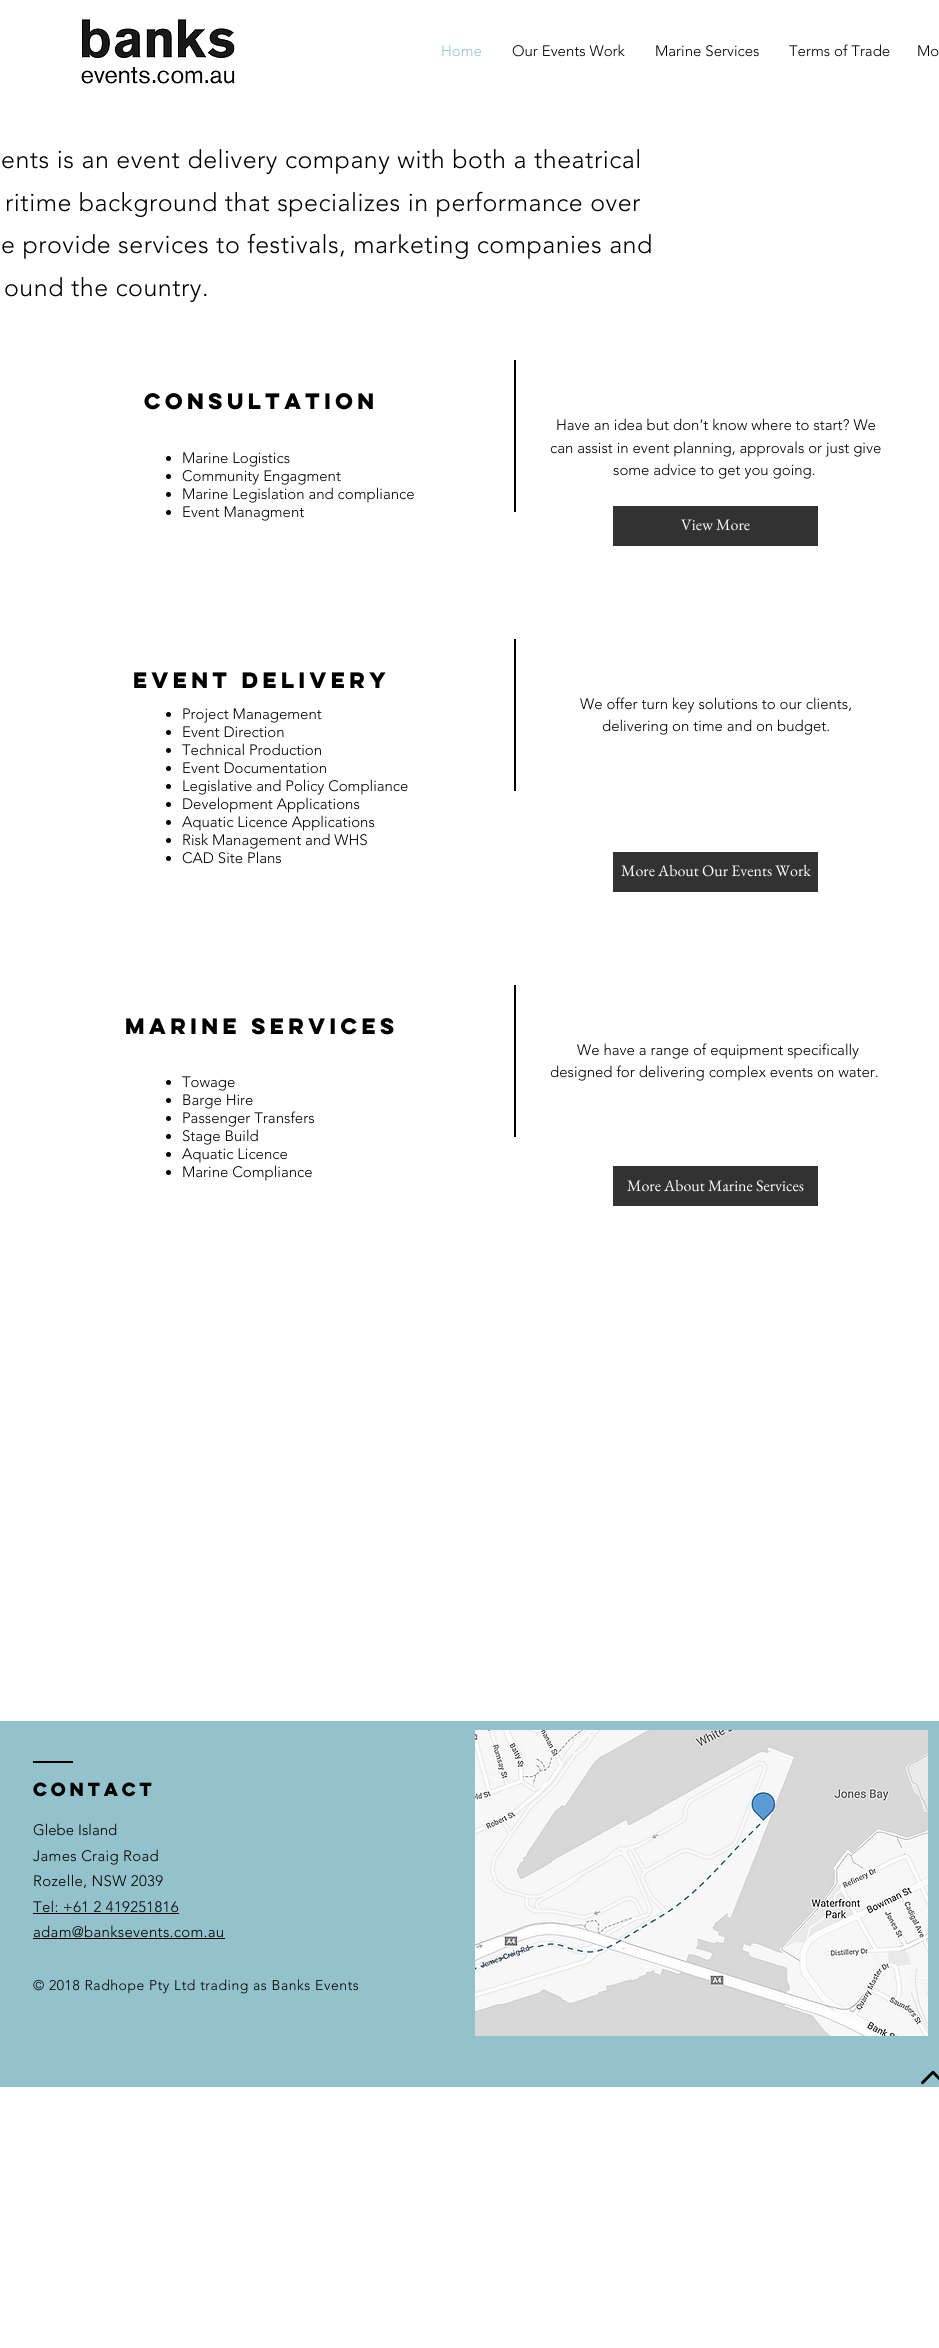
import math
import cairo

surface = cairo.ImageSurface(cairo.FORMAT_RGB24, 939, 2348)
c = cairo.Context(surface)
options = cairo.FontOptions()
options.set_hint_metrics(cairo.HINT_METRICS_OFF)
options.set_hint_style(cairo.HINT_STYLE_NONE)
c.set_font_options(options)
c.set_miter_limit(4)
def C(code):
 c.set_source_rgb(*(v / 255 for v in bytes.fromhex(code[-6:])))
def F(family, size, italic, bold):
 c.select_font_face(family, cairo.FONT_SLANT_ITALIC if italic else cairo.FONT_SLANT_NORMAL, cairo.FONT_WEIGHT_BOLD if bold else cairo.FONT_WEIGHT_NORMAL)
 c.set_font_size(size)
def T(x, y, s):
 c.move_to(x, y)
 c.show_text(s)
def L(x, y, s, letter, word):
 c.move_to(x, y)
 for ch in s:
  c.show_text(ch)
  c.rel_move_to(letter + word * (ch == ' '), 0)
def R(x, y, w, h):
 c.rectangle(x, y, w, h)
 c.fill()
def I(path, x, y, w, h):
 c.save()
 c.set_source_surface(cairo.ImageSurface.create_from_png(path), x, y)
 c.rectangle(x, y, w, h)
 c.fill()
 c.restore()
C('ffffff')
c.paint()
I('1.png',81,17,154,68)
F('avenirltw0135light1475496 Light',15,0,0)
C('93c2cc')
T(441,56,'Home')
C('000000')
T(512,56,'Our Events Work')
T(655,56,'Marine Services')
T(789,56,'Terms of Trade')
T(917,56,'Mo')
F('avenirltw0135light1475496 Light',25,0,0)
L(1,168,'ents is an event delivery company with both a theatrical',.5,0)
L(5,211,'ritime background that specializes in performance over',.5,0)
L(1,253,'e provide services to festivals, marketing companies and',.5,0)
L(4,296,'ound the country.',.5,0)
F('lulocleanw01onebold',20,0,1)
T(144,409,'Consultation')
R(514,360,2,152)
c.new_path()
c.arc(168.5,458.5,2.5,0,2 * math.pi)
c.fill()
F('avenirltw0135light1475496 Light',15,0,0)
T(182,463,'Marine Logistics')
c.new_path()
c.arc(168.5,476.5,2.5,0,2 * math.pi)
c.fill()
T(182,481,'Community Engagment')
c.new_path()
c.arc(168.5,494.5,2.5,0,2 * math.pi)
c.fill()
T(182,499,'Marine Legislation and compliance')
c.new_path()
c.arc(168.5,512.5,2.5,0,2 * math.pi)
c.fill()
T(182,517,'Event Managment')
T(556,430,'Have an idea but don’t know where to start? We')
T(550,453,'can assist in event planning, approvals or just give')
T(613,475,'some advice to get you going.')
C('323232')
R(613,506,205,40)
F('EB Garamond',16,0,0)
C('ffffff')
T(681,530,'View More')
F('lulocleanw01onebold',20,0,1)
C('000000')
T(133,688,'Event Delivery')
R(514,639,2,152)
c.new_path()
c.arc(168.5,714.5,2.5,0,2 * math.pi)
c.fill()
F('avenirltw0135light1475496 Light',15,0,0)
T(182,719,'Project Management')
c.new_path()
c.arc(168.5,732.5,2.5,0,2 * math.pi)
c.fill()
T(182,737,'Event Direction')
c.new_path()
c.arc(168.5,750.5,2.5,0,2 * math.pi)
c.fill()
T(182,755,'Technical Production')
c.new_path()
c.arc(168.5,768.5,2.5,0,2 * math.pi)
c.fill()
T(182,773,'Event Documentation')
c.new_path()
c.arc(168.5,786.5,2.5,0,2 * math.pi)
c.fill()
T(182,791,'Legislative and Policy Compliance')
c.new_path()
c.arc(168.5,804.5,2.5,0,2 * math.pi)
c.fill()
T(182,809,'Development Applications')
c.new_path()
c.arc(168.5,822.5,2.5,0,2 * math.pi)
c.fill()
T(182,827,'Aquatic Licence Applications')
c.new_path()
c.arc(168.5,840.5,2.5,0,2 * math.pi)
c.fill()
T(182,845,'Risk Management and WHS')
c.new_path()
c.arc(168.5,858.5,2.5,0,2 * math.pi)
c.fill()
T(182,863,'CAD Site Plans')
T(580,709,'We offer turn key solutions to our clients,')
T(602,731,'delivering on time and on budget.')
C('323232')
R(613,852,205,40)
F('EB Garamond',16,0,0)
C('ffffff')
T(621,876,'More About Our Events Work')
F('lulocleanw01onebold',20,0,1)
C('000000')
T(125,1034,'Marine Services')
R(514,985,2,152)
F('avenirltw0135light1475496 Light',15,0,0)
T(577,1055,'We have a range of equipment specifically')
T(550,1077,'designed for delivering complex events on water.')
c.new_path()
c.arc(168.5,1082.5,2.5,0,2 * math.pi)
c.fill()
T(182,1087,'Towage')
c.new_path()
c.arc(168.5,1100.5,2.5,0,2 * math.pi)
c.fill()
T(182,1105,'Barge Hire')
c.new_path()
c.arc(168.5,1118.5,2.5,0,2 * math.pi)
c.fill()
T(182,1123,'Passenger Transfers')
c.new_path()
c.arc(168.5,1136.5,2.5,0,2 * math.pi)
c.fill()
T(182,1141,'Stage Build')
c.new_path()
c.arc(168.5,1154.5,2.5,0,2 * math.pi)
c.fill()
T(182,1159,'Aquatic Licence')
c.new_path()
c.arc(168.5,1172.5,2.5,0,2 * math.pi)
c.fill()
T(182,1177,'Marine Compliance')
C('323232')
R(613,1166,205,40)
F('EB Garamond',16,0,0)
C('ffffff')
T(627,1191,'More About Marine Services')
C('93c2cc')
R(0,1721,939,366)
C('000000')
R(33,1761,40,2)
F('lulocleanw01onebold',17,0,1)
T(33,1796,'Contact')
F('avenirltw0135light1475496 Light',15,0,0)
T(33,1835,'Glebe Island')
L(33,1861,'James Craig Road',.3,0)
L(33,1886,'Rozelle, NSW 2039',.3,0)
L(33,1912,'Tel: +61 2 419251816',.3,0)
R(33,1913,146,1)
L(33,1937,'adam@banksevents.com.au',.3,0)
R(33,1938,192,1)
I('2.png',475,1730,453,306)
F('avenirltw0135light1475496 Light',14,0,0)
L(33,1990,'© 2018 Radhope Pty Ltd trading as Banks Events',.55,0)
I('3.png',921,2070,18,15)
surface.write_to_png('o.png')
